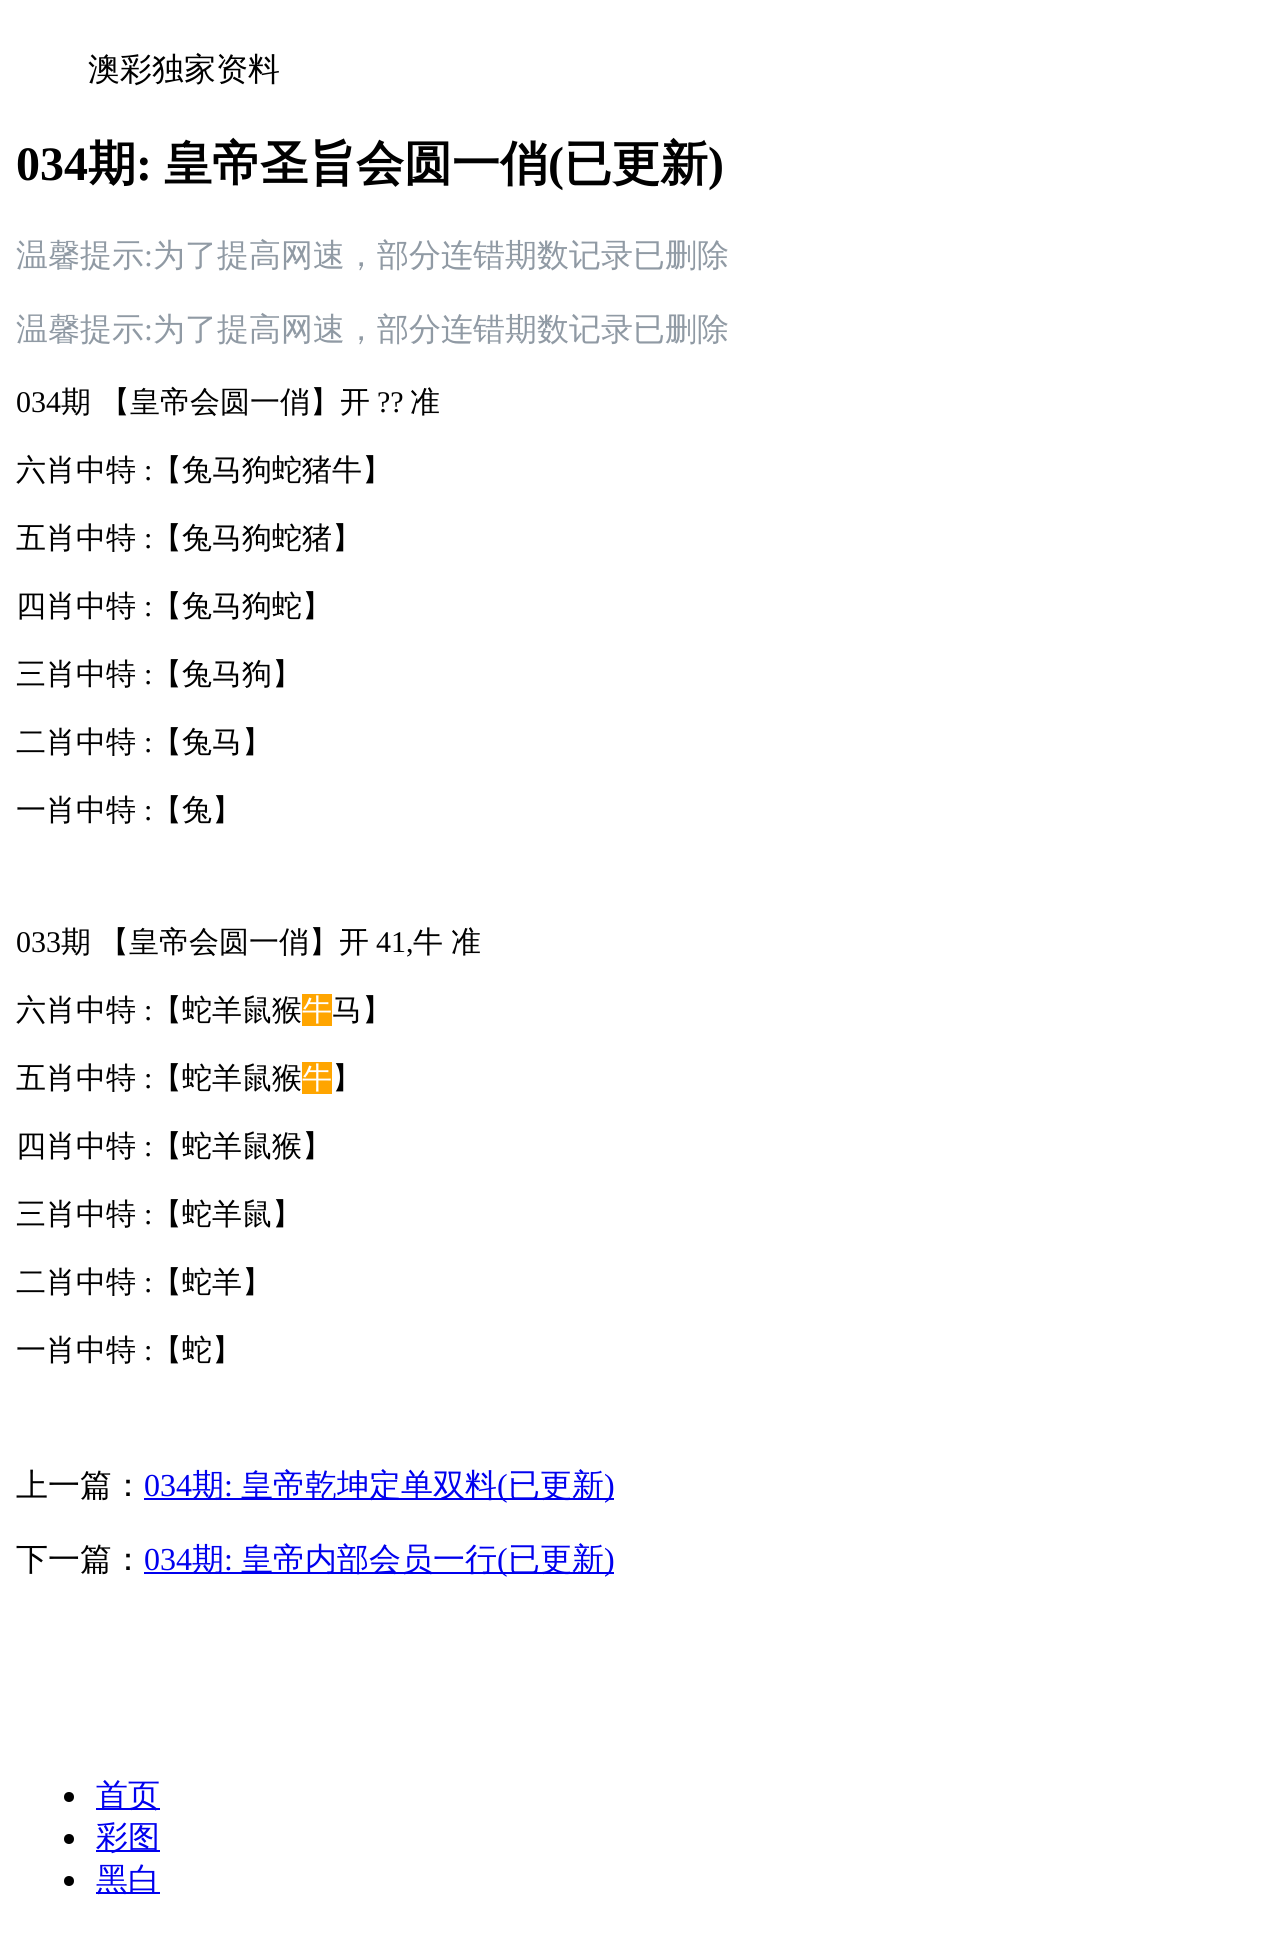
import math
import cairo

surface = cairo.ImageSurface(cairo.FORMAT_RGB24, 1271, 1941)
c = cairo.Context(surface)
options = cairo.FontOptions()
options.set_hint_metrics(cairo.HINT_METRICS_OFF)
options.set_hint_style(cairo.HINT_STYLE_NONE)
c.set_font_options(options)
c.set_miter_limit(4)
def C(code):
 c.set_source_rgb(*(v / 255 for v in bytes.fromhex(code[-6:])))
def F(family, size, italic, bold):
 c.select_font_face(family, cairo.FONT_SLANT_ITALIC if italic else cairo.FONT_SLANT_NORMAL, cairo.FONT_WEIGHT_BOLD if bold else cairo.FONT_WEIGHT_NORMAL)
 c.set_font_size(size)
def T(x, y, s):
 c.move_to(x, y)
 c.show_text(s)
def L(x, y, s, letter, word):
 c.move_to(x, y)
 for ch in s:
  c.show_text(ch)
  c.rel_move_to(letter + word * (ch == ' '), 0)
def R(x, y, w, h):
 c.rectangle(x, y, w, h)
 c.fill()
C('ffffff')
c.paint()
F('WenQuanYi Zen Hei Medium',32,0,0)
C('000000')
T(88,80,'澳彩独家资料')
F('Liberation Serif',48,0,1)
T(16,180,'034')
F('WenQuanYi Zen Hei',48,0,1)
T(88,180,'期')
F('Liberation Serif',48,0,1)
T(136,180,':')
F('WenQuanYi Zen Hei',48,0,1)
T(164,180,'皇帝圣旨会圆一俏')
F('Liberation Serif',48,0,1)
T(548,180,'(')
F('WenQuanYi Zen Hei',48,0,1)
T(564,180,'已更新')
F('Liberation Serif',48,0,1)
T(708,180,')')
F('WenQuanYi Zen Hei Medium',32,0,0)
C('909aa4')
T(16,266,'温馨提示')
F('Liberation Serif',32,0,0)
T(144,266,':')
F('WenQuanYi Zen Hei Medium',32,0,0)
T(153,266,'为了提高网速，部分连错期数记录已删除')
T(16,340,'温馨提示')
F('Liberation Serif',32,0,0)
T(144,340,':')
F('WenQuanYi Zen Hei Medium',32,0,0)
T(153,340,'为了提高网速，部分连错期数记录已删除')
F('Liberation Serif',30,0,0)
C('000000')
T(16,412,'034')
F('WenQuanYi Zen Hei Medium',30,0,0)
T(61,412,'期 【皇帝会圆一俏】开')
F('Liberation Serif',30,0,0)
T(377,412,'??')
F('WenQuanYi Zen Hei Medium',30,0,0)
T(410,412,'准')
T(16,480,'六肖中特')
F('Liberation Serif',30,0,0)
T(144,480,':')
F('WenQuanYi Zen Hei Medium',30,0,0)
T(152,480,'【兔马狗蛇猪牛】')
T(16,548,'五肖中特')
F('Liberation Serif',30,0,0)
T(144,548,':')
F('WenQuanYi Zen Hei Medium',30,0,0)
T(152,548,'【兔马狗蛇猪】')
T(16,616,'四肖中特')
F('Liberation Serif',30,0,0)
T(144,616,':')
F('WenQuanYi Zen Hei Medium',30,0,0)
T(152,616,'【兔马狗蛇】')
T(16,684,'三肖中特')
F('Liberation Serif',30,0,0)
T(144,684,':')
F('WenQuanYi Zen Hei Medium',30,0,0)
T(152,684,'【兔马狗】')
T(16,752,'二肖中特')
F('Liberation Serif',30,0,0)
T(144,752,':')
F('WenQuanYi Zen Hei Medium',30,0,0)
T(152,752,'【兔马】')
T(16,820,'一肖中特')
F('Liberation Serif',30,0,0)
T(144,820,':')
F('WenQuanYi Zen Hei Medium',30,0,0)
T(152,820,'【兔】')
F('Liberation Serif',30,0,0)
T(16,952,'033')
F('WenQuanYi Zen Hei Medium',30,0,0)
L(61,952,'期 【皇帝会圆一俏】开',0,-1)
F('Liberation Serif',30,0,0)
T(376,952,'41,')
F('WenQuanYi Zen Hei Medium',30,0,0)
L(413,952,'牛 准',0,-1)
T(16,1020,'六肖中特')
F('Liberation Serif',30,0,0)
T(144,1020,':')
F('WenQuanYi Zen Hei Medium',30,0,0)
T(152,1020,'【蛇羊鼠猴')
C('ffa500')
R(302,994,30,32)
C('ffffff')
T(302,1020,'牛')
C('000000')
T(332,1020,'马】')
T(16,1088,'五肖中特')
F('Liberation Serif',30,0,0)
T(144,1088,':')
F('WenQuanYi Zen Hei Medium',30,0,0)
T(152,1088,'【蛇羊鼠猴')
C('ffa500')
R(302,1062,30,32)
C('ffffff')
T(302,1088,'牛')
C('000000')
T(332,1088,'】')
T(16,1156,'四肖中特')
F('Liberation Serif',30,0,0)
T(144,1156,':')
F('WenQuanYi Zen Hei Medium',30,0,0)
T(152,1156,'【蛇羊鼠猴】')
T(16,1224,'三肖中特')
F('Liberation Serif',30,0,0)
T(144,1224,':')
F('WenQuanYi Zen Hei Medium',30,0,0)
T(152,1224,'【蛇羊鼠】')
T(16,1292,'二肖中特')
F('Liberation Serif',30,0,0)
T(144,1292,':')
F('WenQuanYi Zen Hei Medium',30,0,0)
T(152,1292,'【蛇羊】')
T(16,1360,'一肖中特')
F('Liberation Serif',30,0,0)
T(144,1360,':')
F('WenQuanYi Zen Hei Medium',30,0,0)
T(152,1360,'【蛇】')
F('WenQuanYi Zen Hei Medium',32,0,0)
T(16,1496,'上一篇：')
F('Liberation Serif',32,0,0)
C('0000ee')
T(144,1496,'034')
R(144,1498,470,2)
F('WenQuanYi Zen Hei Medium',32,0,0)
T(192,1496,'期')
F('Liberation Serif',32,0,0)
T(224,1496,':')
F('WenQuanYi Zen Hei Medium',32,0,0)
T(241,1496,'皇帝乾坤定单双料')
F('Liberation Serif',32,0,0)
T(497,1496,'(')
F('WenQuanYi Zen Hei Medium',32,0,0)
T(508,1496,'已更新')
F('Liberation Serif',32,0,0)
T(604,1496,')')
F('WenQuanYi Zen Hei Medium',32,0,0)
C('000000')
T(16,1570,'下一篇：')
F('Liberation Serif',32,0,0)
C('0000ee')
T(144,1570,'034')
R(144,1572,470,2)
F('WenQuanYi Zen Hei Medium',32,0,0)
T(192,1570,'期')
F('Liberation Serif',32,0,0)
T(224,1570,':')
F('WenQuanYi Zen Hei Medium',32,0,0)
T(241,1570,'皇帝内部会员一行')
F('Liberation Serif',32,0,0)
T(497,1570,'(')
F('WenQuanYi Zen Hei Medium',32,0,0)
T(508,1570,'已更新')
F('Liberation Serif',32,0,0)
T(604,1570,')')
C('000000')
c.new_path()
c.arc(69,1797,5,0,2 * math.pi)
c.fill()
C('0000ee')
R(96,1808,64,2)
F('WenQuanYi Zen Hei Medium',32,0,0)
T(96,1806,'首页')
C('000000')
c.new_path()
c.arc(69,1839,5,0,2 * math.pi)
c.fill()
C('0000ee')
R(96,1850,64,2)
T(96,1848,'彩图')
C('000000')
c.new_path()
c.arc(69,1881,5,0,2 * math.pi)
c.fill()
C('0000ee')
R(96,1892,64,2)
T(96,1890,'黑白')
surface.write_to_png('o.png')
